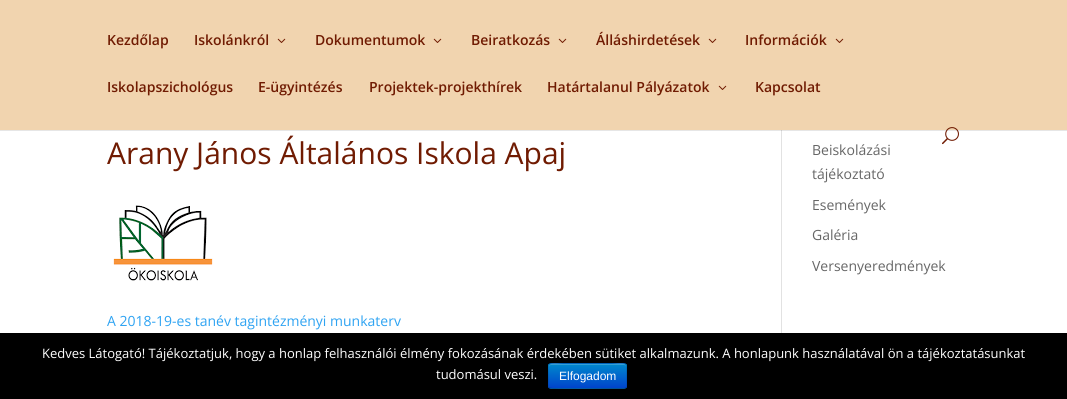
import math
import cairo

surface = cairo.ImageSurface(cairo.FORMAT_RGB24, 1067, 399)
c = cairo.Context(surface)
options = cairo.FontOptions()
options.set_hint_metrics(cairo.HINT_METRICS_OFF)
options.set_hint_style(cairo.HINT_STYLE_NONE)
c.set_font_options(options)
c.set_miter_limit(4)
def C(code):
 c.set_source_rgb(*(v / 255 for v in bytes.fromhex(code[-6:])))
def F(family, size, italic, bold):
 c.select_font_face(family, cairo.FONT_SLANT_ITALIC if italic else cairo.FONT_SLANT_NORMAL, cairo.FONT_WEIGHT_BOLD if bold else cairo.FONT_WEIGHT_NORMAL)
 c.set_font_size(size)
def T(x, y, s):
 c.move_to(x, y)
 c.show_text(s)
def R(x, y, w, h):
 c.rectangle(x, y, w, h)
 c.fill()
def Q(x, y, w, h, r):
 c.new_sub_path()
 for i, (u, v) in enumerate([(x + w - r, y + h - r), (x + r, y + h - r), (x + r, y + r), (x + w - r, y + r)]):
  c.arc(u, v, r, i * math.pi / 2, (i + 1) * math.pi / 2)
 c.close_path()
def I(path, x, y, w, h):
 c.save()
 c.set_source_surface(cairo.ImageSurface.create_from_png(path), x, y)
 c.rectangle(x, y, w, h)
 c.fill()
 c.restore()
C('ffffff')
c.paint()
C('e6e6e6')
R(0,130,1067,1)
C('f1d4af')
R(0,0,1067,130)
F('Open Sans SemiBold',14,0,0)
C('701b02')
T(107,45,'Kezdőlap')
T(194,45,'Iskolánkról')
I('1.png',277,38,9,5)
T(315,45,'Dokumentumok')
I('1.png',433,38,9,5)
T(471,45,'Beiratkozás')
I('1.png',558,38,9,5)
T(596,45,'Álláshirdetések')
I('1.png',708,38,9,5)
T(745,45,'Információk')
I('1.png',835,38,9,5)
T(107,92,'Iskolapszichológus')
T(258,92,'E-ügyintézés')
T(369,92,'Projektek-projekthírek')
T(547,92,'Határtalanul Pályázatok')
I('1.png',718,85,9,5)
T(755,92,'Kapcsolat')
I('2.png',942,127,17,18)
C('e2e2e2')
R(781,131,1,202)
C('cbcbcb')
R(781,130,1,1)
F('Open Sans',30,0,0)
C('701b02')
T(107,164,'Arany János Általános Iskola Apaj')
I('3.png',113,205,100,76)
F('Open Sans',14,0,0)
C('2ea3f2')
T(107,326,'A 2018-19-es tanév tagintézményi munkaterv')
C('666666')
T(812,155,'Beiskolázási')
T(812,179,'tájékoztató')
T(812,210,'Események')
T(812,240,'Galéria')
T(812,271,'Versenyeredmények')
C('000000')
R(0,333,1067,66)
F('Open Sans',13,0,0)
C('ffffff')
T(42,358,'Kedves Látogató! Tájékoztatjuk, hogy a honlap felhasználói élmény fokozásának érdekében sütiket alkalmazunk. A honlapunk használatával ön a tájékoztatásunkat')
T(436,379,'tudomásul veszi.')
C('006dcc')
Q(548,363,79,26,3)
c.fill()
c.save()
Q(548,363,79,26,3)
c.clip()
gradient = cairo.LinearGradient(588,364,588,388)
gradient.add_color_stop_rgba(0,0,0.533,0.8,1)
gradient.add_color_stop_rgba(1,0,0.267,0.8,1)
c.set_source(gradient)
R(548,364,79,24)
c.restore()
c.set_source_rgba(1,1,1,0.2)
c.new_path()
c.move_to(551,365)
c.line_to(624,365)
c.curve_to(625,365,626,366,626,367)
c.curve_to(626,361,615,364,612,364)
c.line_to(563,364)
c.curve_to(560,364,549,361,549,367)
c.curve_to(549,366,550,365,551,365)
c.close_path()
c.fill()
c.new_path()
c.move_to(626,388)
c.line_to(624,388.5)
c.line_to(612,388.5)
c.curve_to(605,388.5,551.5,389.5,549.5,388)
c.line_to(549,388)
c.set_source_rgba(0,0,0,0.25)
c.set_line_width(1)
c.stroke()
c.new_path()
c.move_to(549,388)
c.curve_to(547.5,386,548.5,381.5,548.5,379.5)
c.curve_to(548.5,361,545,363.5,563,363.5)
c.line_to(612,363.5)
c.curve_to(628.5,363.5,626.5,360.5,626.5,376)
c.curve_to(626.5,378.5,627.5,386,626,388)
c.set_source_rgba(0,0,0,0.1)
c.stroke()
F('Liberation Sans',12,0,0)
C('ffffff')
T(559,380,'Elfogadom')
surface.write_to_png('o.png')
